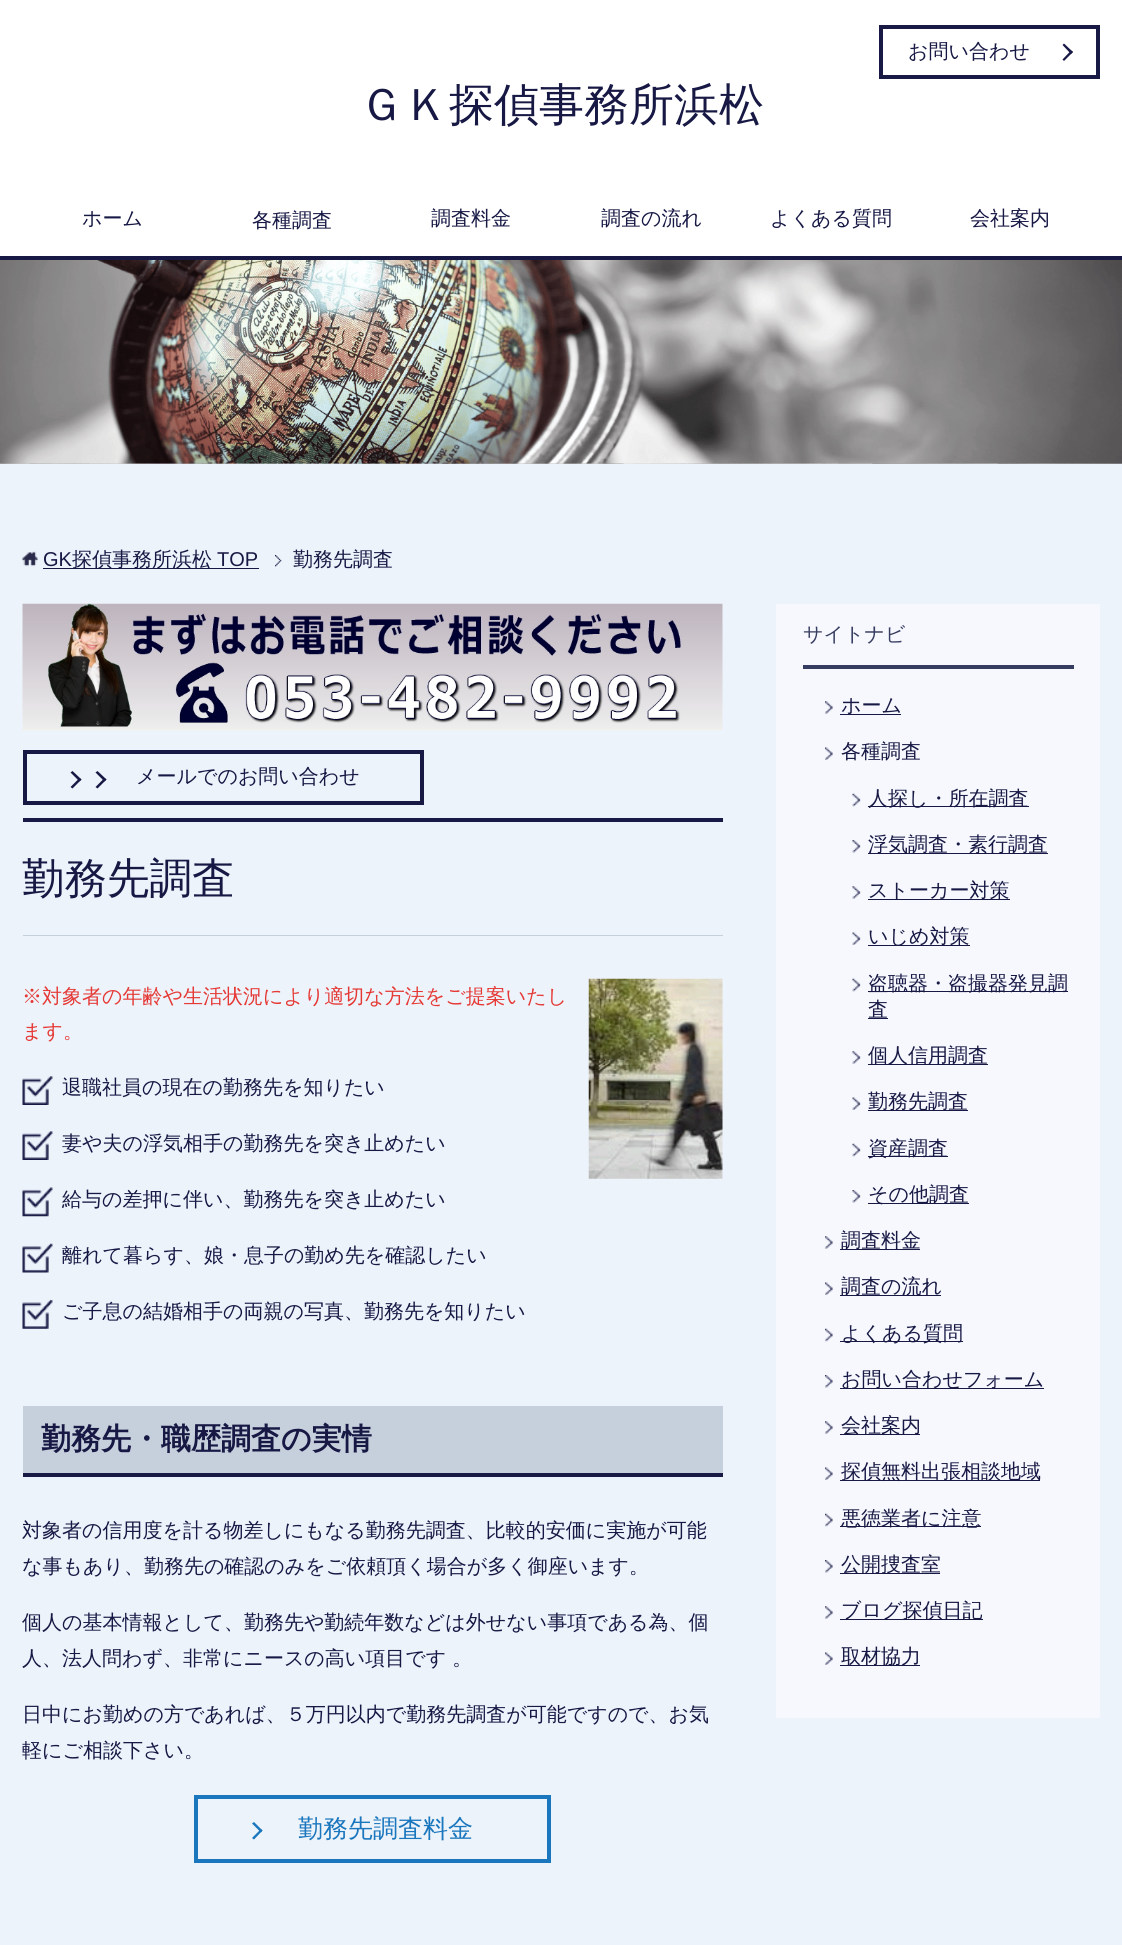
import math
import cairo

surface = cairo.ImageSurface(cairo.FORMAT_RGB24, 1122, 1945)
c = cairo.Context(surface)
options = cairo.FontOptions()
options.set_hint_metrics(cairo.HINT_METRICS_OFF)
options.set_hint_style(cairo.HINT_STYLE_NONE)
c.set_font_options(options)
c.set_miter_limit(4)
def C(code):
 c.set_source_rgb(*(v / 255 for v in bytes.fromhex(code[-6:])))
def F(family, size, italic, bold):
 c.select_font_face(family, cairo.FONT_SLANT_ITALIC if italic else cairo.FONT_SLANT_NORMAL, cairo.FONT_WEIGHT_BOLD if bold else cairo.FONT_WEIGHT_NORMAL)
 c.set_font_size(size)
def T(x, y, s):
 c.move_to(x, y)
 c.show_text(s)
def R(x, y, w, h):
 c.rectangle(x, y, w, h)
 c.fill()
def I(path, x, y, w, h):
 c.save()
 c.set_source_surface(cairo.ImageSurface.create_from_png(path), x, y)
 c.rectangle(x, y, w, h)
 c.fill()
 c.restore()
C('edf3fb')
c.paint()
C('ffffff')
R(0,0,1122,256)
c.rectangle(881,27,217,50)
C('181944')
c.set_line_width(4)
c.stroke()
F('WenQuanYi Zen Hei Medium',20,0,0)
C('171844')
T(908,58,'お問い合わせ')
c.new_path()
c.move_to(1062.5,45)
c.line_to(1064,43.5)
c.line_to(1073,52)
c.line_to(1071,54)
c.close_path()
c.fill()
c.new_path()
c.move_to(1062.5,59.5)
c.line_to(1071,50.5)
c.line_to(1073,52)
c.line_to(1064,61)
c.close_path()
c.fill()
F('WenQuanYi Zen Hei Medium',45,0,0)
T(359,120,'ＧＫ探偵事務所浜松')
R(0,256,1122,4)
F('WenQuanYi Zen Hei Medium',20,0,0)
T(82,225,'ホーム')
T(252,227,'各種調査')
T(431,225,'調査料金')
T(601,225,'調査の流れ')
T(770,225,'よくある質問')
T(970,225,'会社案内')
I('1.png',0,260,1122,204)
I('2.png',275,555,7,12)
I('3.png',22,551,16,16)
F('Liberation Sans',20,0,0)
T(43,566,'GK')
R(43,568,216,1)
F('WenQuanYi Zen Hei Medium',20,0,0)
T(72,566,'探偵事務所浜松')
F('Liberation Sans',20,0,0)
T(217,566,'TOP')
F('WenQuanYi Zen Hei Medium',20,0,0)
T(293,566,'勤務先調査')
I('4.png',22,603,701,127)
c.rectangle(25,752,397,51)
c.stroke()
c.new_path()
c.move_to(70.5,772.5)
c.line_to(72.5,771)
c.line_to(81.5,779.5)
c.line_to(79.5,781.5)
c.close_path()
c.fill()
c.new_path()
c.move_to(70.5,787)
c.line_to(79.5,778)
c.line_to(81.5,779.5)
c.line_to(72.5,788.5)
c.close_path()
c.move_to(95.5,772.5)
c.line_to(97.5,771)
c.line_to(106.5,779.5)
c.line_to(104.5,781.5)
c.close_path()
c.fill()
T(136,783,'メールでのお問い合わせ')
c.new_path()
c.move_to(95.5,787)
c.line_to(104.5,778)
c.line_to(106.5,779.5)
c.line_to(97.5,788.5)
c.close_path()
c.fill()
C('181944')
R(23,818,700,4)
C('c6d0dc')
R(23,935,700,1)
F('WenQuanYi Zen Hei Medium',42.5,0,0)
C('171844')
T(22,893,'勤務先調査')
F('WenQuanYi Zen Hei Medium',20,0,0)
C('e53935')
T(22,1003,'※対象者の年齢や生活状況により適切な方法をご提案いたし')
T(22,1038,'ます。')
I('5.png',588,978,135,201)
I('6.png',22,1076,31,29)
C('171844')
T(62,1094,'退職社員の現在の勤務先を知りたい')
I('6.png',22,1131,31,29)
T(62,1150,'妻や夫の浮気相手の勤務先を突き止めたい')
I('7.png',22,1187,31,30)
T(62,1206,'給与の差押に伴い、勤務先を突き止めたい')
I('8.png',22,1243,31,30)
T(62,1262,'離れて暮らす、娘・息子の勤め先を確認したい')
I('9.png',22,1299,31,30)
T(62,1318,'ご子息の結婚相手の両親の写真、勤務先を知りたい')
C('c6d0dc')
R(23,1406,700,67)
C('181944')
R(23,1473,700,4)
F('WenQuanYi Zen Hei',30,0,1)
C('171844')
T(41,1449,'勤務先・職歴調査の実情')
F('WenQuanYi Zen Hei Medium',20,0,0)
T(22,1537,'対象者の信用度を計る物差しにもなる勤務先調査、比較的安価に実施が可能')
T(22,1573,'な事もあり、勤務先の確認のみをご依頼頂く場合が多く御座います。')
T(22,1629,'個人の基本情報として、勤務先や勤続年数などは外せない事項である為、個')
T(22,1665,'人、法人問わず、非常にニースの高い項目です 。')
T(22,1721,'日中にお勤めの方であれば、５万円以内で勤務先調査が可能ですので、お気')
T(22,1757,'軽にご相談下さい。')
c.rectangle(196,1797,353,64)
C('1a76bd')
c.stroke()
c.new_path()
c.move_to(252,1823.5)
c.line_to(254,1822)
c.line_to(262.5,1830.5)
c.line_to(261,1832.5)
c.close_path()
c.fill()
c.new_path()
c.move_to(252,1838)
c.line_to(261,1829)
c.line_to(262.5,1830.5)
c.line_to(254,1839.5)
c.close_path()
c.fill()
F('WenQuanYi Zen Hei Medium',25,0,0)
T(298,1837,'勤務先調査料金')
C('f6f8fe')
R(776,604,324,1114)
C('373d60')
R(803,665,271,4)
F('WenQuanYi Zen Hei Medium',20,0,0)
T(803,641,'サイトナビ')
I('10.png',825,701,8,13)
C('171844')
R(840,714,61,1)
T(841,712,'ホーム')
I('11.png',825,747,8,13)
T(841,758,'各種調査')
I('12.png',852,793,9,14)
R(868,806,161,1)
T(868,805,'人探し・所在調査')
I('13.png',852,840,9,13)
R(868,853,180,1)
T(868,851,'浮気調査・素行調査')
I('14.png',852,886,9,13)
R(868,899,142,1)
T(868,897,'ストーカー対策')
I('15.png',852,932,9,13)
R(868,945,102,1)
T(868,943,'いじめ対策')
I('12.png',852,978,9,14)
R(868,991,200,1)
T(868,990,'盗聴器・盗撮器発見調')
T(868,1016,'査')
R(868,1018,20,1)
I('14.png',852,1051,9,13)
R(868,1064,120,1)
T(868,1062,'個人信用調査')
I('15.png',852,1097,9,13)
R(868,1110,100,1)
T(868,1108,'勤務先調査')
I('12.png',852,1143,9,14)
R(868,1156,80,1)
T(868,1155,'資産調査')
I('13.png',852,1190,9,13)
R(868,1203,101,1)
T(868,1201,'その他調査')
I('10.png',825,1236,8,13)
R(840,1249,80,1)
T(841,1247,'調査料金')
I('11.png',825,1282,8,13)
R(840,1295,101,1)
T(841,1293,'調査の流れ')
I('16.png',825,1328,8,14)
R(840,1341,123,1)
T(841,1340,'よくある質問')
I('17.png',825,1375,8,13)
R(840,1388,204,1)
T(841,1386,'お問い合わせフォーム')
I('10.png',825,1421,8,13)
R(840,1434,80,1)
T(841,1432,'会社案内')
I('11.png',825,1467,8,13)
R(840,1480,200,1)
T(841,1478,'探偵無料出張相談地域')
I('16.png',825,1513,8,14)
R(840,1526,141,1)
T(841,1525,'悪徳業者に注意')
I('18.png',825,1560,8,13)
R(840,1573,100,1)
T(841,1571,'公開捜査室')
I('10.png',825,1606,8,13)
R(840,1619,143,1)
T(841,1617,'ブログ探偵日記')
I('11.png',825,1652,8,13)
R(840,1665,80,1)
T(841,1663,'取材協力')
surface.write_to_png('o.png')
